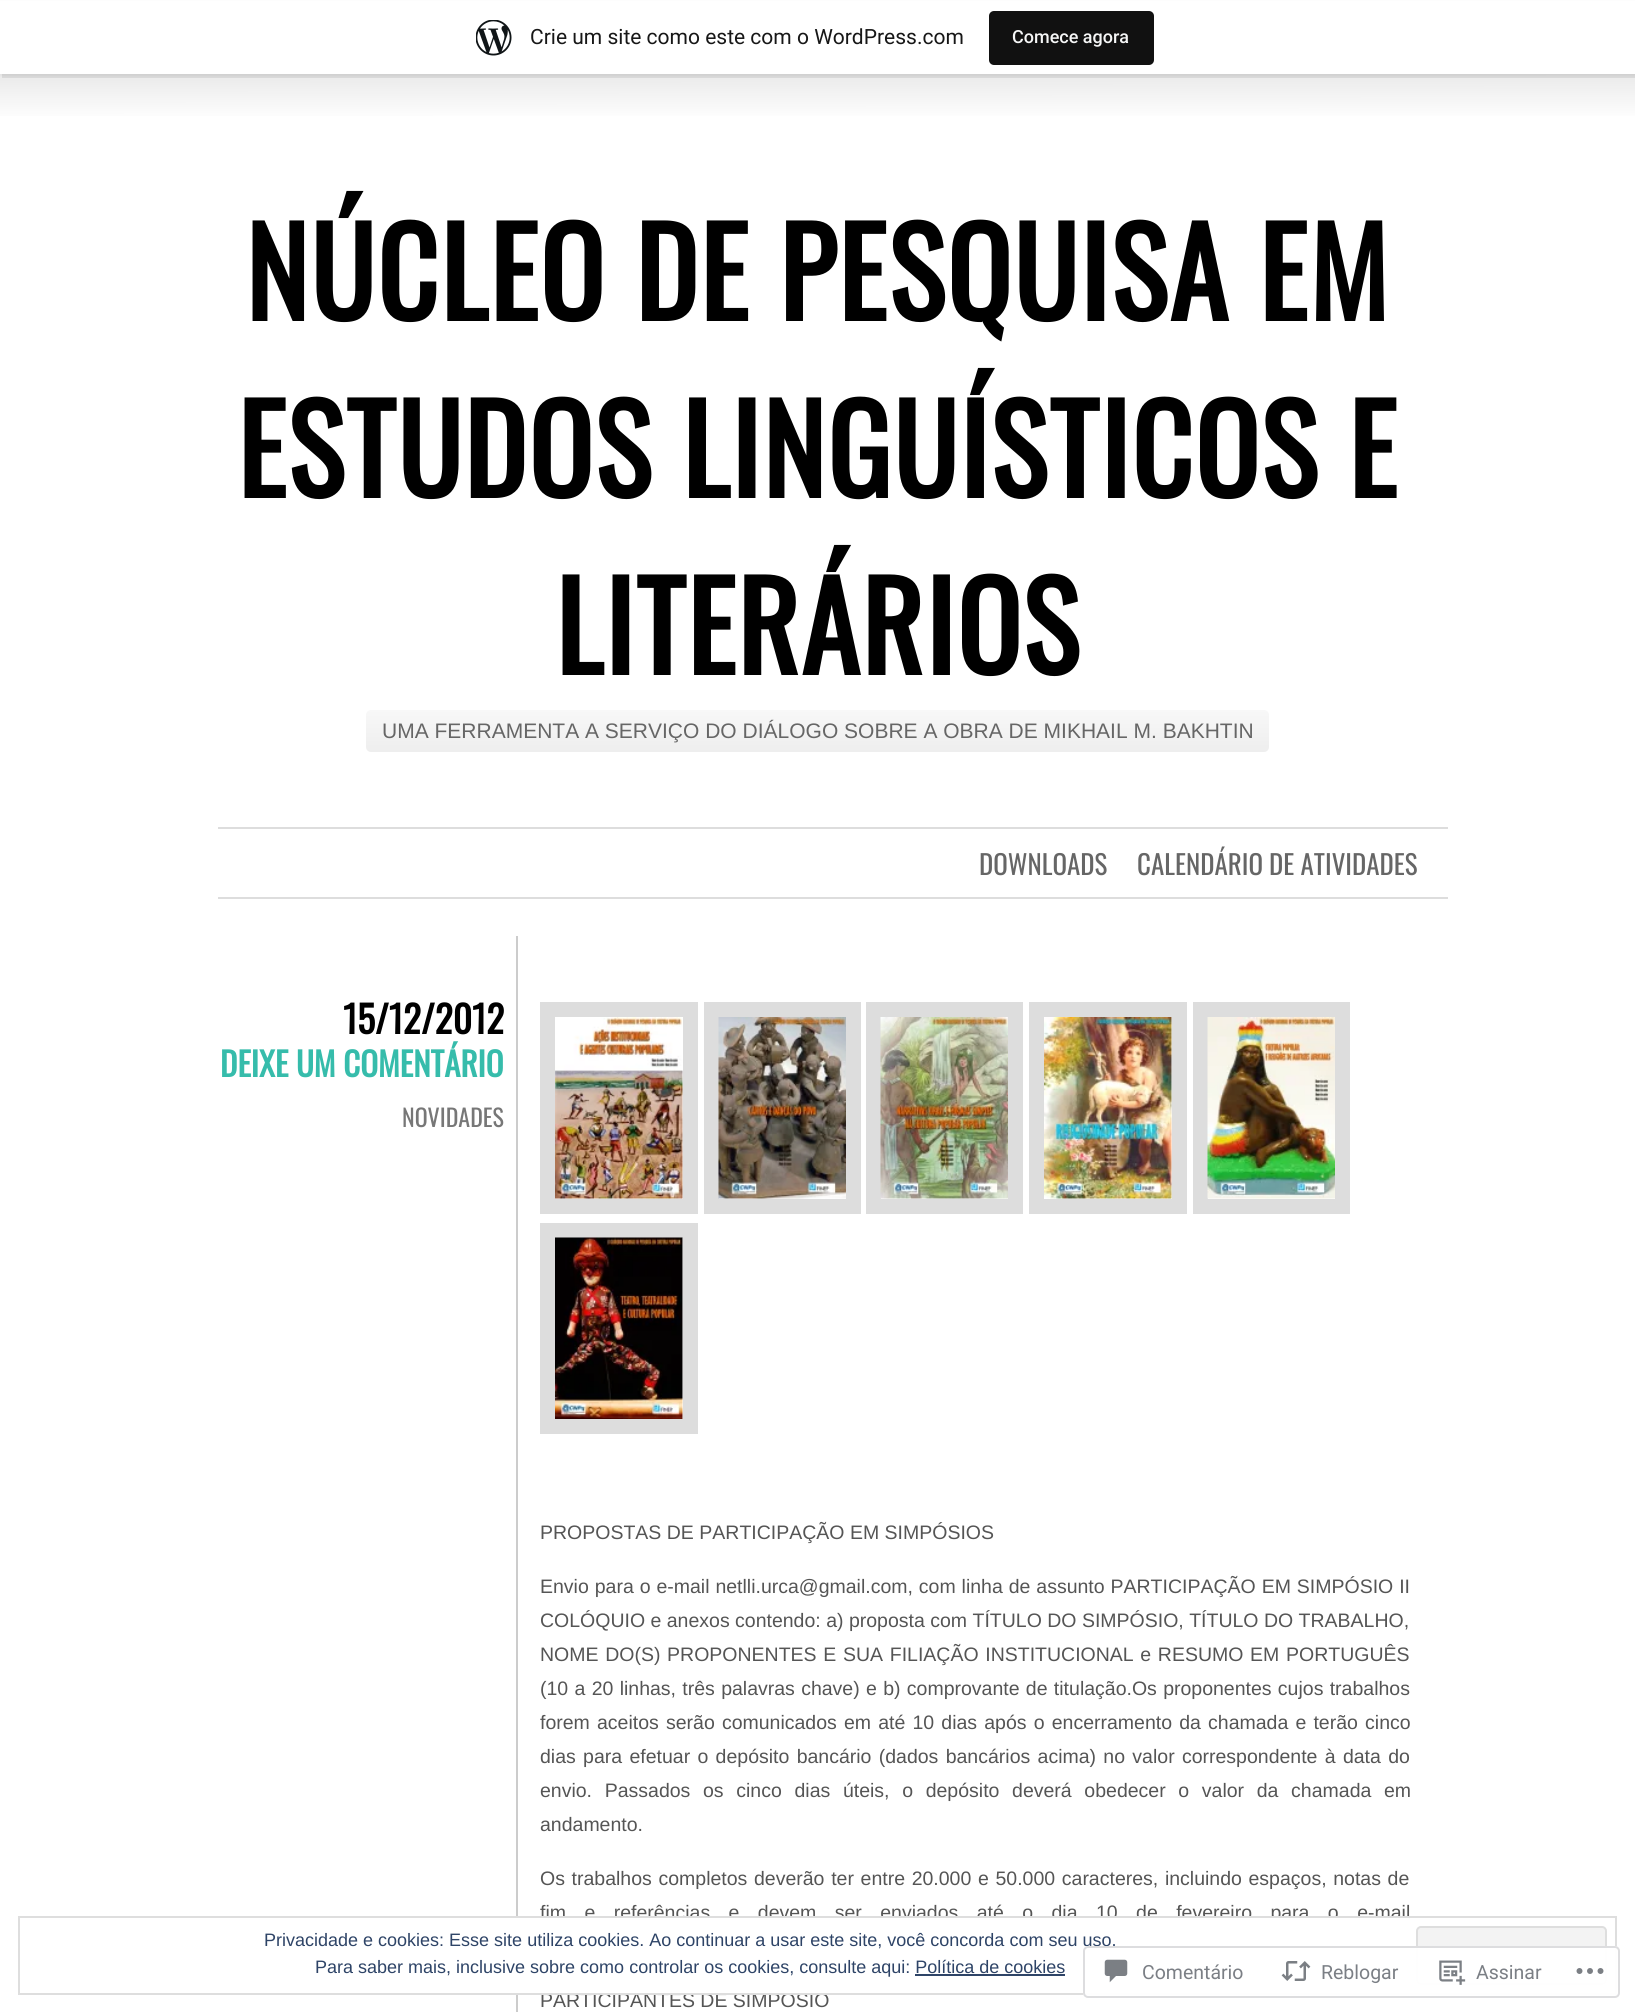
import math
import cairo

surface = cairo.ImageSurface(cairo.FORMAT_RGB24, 1635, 2012)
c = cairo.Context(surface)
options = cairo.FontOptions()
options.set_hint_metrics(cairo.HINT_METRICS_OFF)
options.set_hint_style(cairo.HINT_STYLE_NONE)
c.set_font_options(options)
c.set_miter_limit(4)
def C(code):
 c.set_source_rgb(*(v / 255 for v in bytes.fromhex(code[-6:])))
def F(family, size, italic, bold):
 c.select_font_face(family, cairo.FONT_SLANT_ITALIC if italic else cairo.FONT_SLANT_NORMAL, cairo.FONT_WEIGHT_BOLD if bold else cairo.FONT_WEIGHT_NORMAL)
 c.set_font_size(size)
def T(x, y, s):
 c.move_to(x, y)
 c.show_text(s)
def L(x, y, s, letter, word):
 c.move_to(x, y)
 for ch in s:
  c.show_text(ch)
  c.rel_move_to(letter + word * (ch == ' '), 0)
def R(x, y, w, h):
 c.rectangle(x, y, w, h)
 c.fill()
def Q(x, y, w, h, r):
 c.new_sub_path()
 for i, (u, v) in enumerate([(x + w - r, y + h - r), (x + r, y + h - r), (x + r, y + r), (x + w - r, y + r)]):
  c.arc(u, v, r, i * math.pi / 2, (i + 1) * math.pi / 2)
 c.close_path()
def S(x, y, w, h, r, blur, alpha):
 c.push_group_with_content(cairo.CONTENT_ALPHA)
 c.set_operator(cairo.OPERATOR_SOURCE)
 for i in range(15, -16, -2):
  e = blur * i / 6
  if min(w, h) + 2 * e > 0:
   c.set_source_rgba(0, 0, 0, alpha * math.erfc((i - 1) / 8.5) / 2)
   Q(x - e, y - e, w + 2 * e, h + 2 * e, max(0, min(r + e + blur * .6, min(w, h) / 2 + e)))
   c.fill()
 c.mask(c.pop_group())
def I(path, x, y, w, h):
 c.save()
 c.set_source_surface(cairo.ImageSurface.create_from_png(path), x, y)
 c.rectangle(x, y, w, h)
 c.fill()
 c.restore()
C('ffffff')
c.paint()
gradient = cairo.LinearGradient(817,0,818,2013)
gradient.add_color_stop_rgba(0,0.784,0.784,0.784,1)
gradient.add_color_stop_rgba(.06,1,1,1,1)
c.set_source(gradient)
R(0,74,1635,42)
C('000000')
S(0,2,1635,73,0,1.5,.05)
c.set_source_rgba(0,0,0,0.08)
c.new_path()
c.move_to(2,74)
c.line_to(2,78)
c.line_to(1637,78)
c.line_to(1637,5)
c.line_to(1635,5)
c.line_to(1635,74)
c.close_path()
c.fill()
C('ffffff')
R(0,1,1635,73)
I('1.png',476,20,36,36)
F('Roboto',21,0,0)
C('171717')
T(530,44,'Crie um site como este com o WordPress.com')
C('111111')
Q(989,11,165,54,5)
c.fill()
F('Roboto Medium',18,0,0)
C('f6f7f7')
T(1012,43,'Comece agora')
F('Oswald',120,0,1)
C('000000')
L(245,321,'NÚCLEO DE PESQUISA EM',1.5,0)
L(237,498,'ESTUDOS LINGUÍSTICOS E',1.5,0)
L(555,675,'LITERÁRIOS',1.5,0)
gradient = cairo.LinearGradient(818,709,818,752)
gradient.add_color_stop_rgba(0,0.973,0.973,0.973,1)
gradient.add_color_stop_rgba(1,0.933,0.933,0.933,1)
c.set_source(gradient)
Q(366,710,903,42,5)
c.fill()
F('Liberation Sans',21,0,0)
C('666666')
T(382,738,'UMA FERRAMENTA A SERVIÇO DO DIÁLOGO SOBRE A OBRA DE MIKHAIL M. BAKHTIN')
C('dddddd')
R(218,827,1230,2)
R(218,897,1230,2)
F('Oswald',27,0,0)
C('666666')
T(979,875,'DOWNLOADS')
T(1137,875,'CALENDÁRIO DE ATIVIDADES')
C('cccccc')
R(516,936,2,1076)
F('Oswald',37.5,0,1)
C('000000')
T(343,1034,'15/12/2012')
F('Oswald',33,0,1)
C('36bcab')
T(220,1077,'DEIXE UM COMENTÁRIO')
F('Oswald',24,0,0)
C('777777')
T(402,1127,'NOVIDADES')
c.rectangle(547.5,1009.5,143,197)
C('dddddd')
c.set_line_width(15)
c.stroke()
c.rectangle(711.5,1009.5,142,197)
c.stroke()
c.rectangle(873.5,1009.5,142,197)
c.stroke()
c.rectangle(1036.5,1009.5,143,197)
c.stroke()
c.rectangle(1200.5,1009.5,142,197)
c.stroke()
I('2.png',555,1017,128,182)
I('3.png',718,1017,128,182)
I('4.png',880,1017,128,182)
I('5.png',1044,1017,128,182)
I('6.png',1207,1017,128,182)
c.rectangle(547.5,1230.5,143,196)
c.stroke()
I('7.png',555,1237,128,182)
F('Liberation Sans',19.5,0,0)
C('555555')
T(540,1539,'PROPOSTAS DE PARTICIPAÇÃO EM SIMPÓSIOS')
L(540,1593,'Envio para o e-mail netlli.urca@gmail.com, com linha de assunto PARTICIPAÇÃO EM SIMPÓSIO II',0,.5)
T(540,1627,'COLÓQUIO e anexos contendo: a) proposta com TÍTULO DO SIMPÓSIO, TÍTULO DO TRABALHO,')
L(540,1661,'NOME DO(S) PROPONENTES E SUA FILIAÇÃO INSTITUCIONAL e RESUMO EM PORTUGUÊS',0,1.25)
L(540,1695,'(10 a 20 linhas, três palavras chave) e b) comprovante de titulação.Os proponentes cujos trabalhos',0,.9)
L(540,1729,'forem aceitos serão comunicados em até 10 dias após o encerramento da chamada e terão cinco',0,1.75)
L(540,1763,'dias para efetuar o depósito bancário (dados bancários acima) no valor correspondente à data do',0,1.9)
L(540,1797,'envio. Passados os cinco dias úteis, o depósito deverá obedecer o valor da chamada em',0,7.25)
T(540,1831,'andamento.')
L(540,1885,'Os trabalhos completos deverão ter entre 20.000 e 50.000 caracteres, incluindo espaços, notas de',0,1.25)
L(540,1919,'fim e referências e devem ser enviados até o dia 10 de fevereiro para o e-mail',0,13)
T(540,2007,'PARTICIPANTES DE SIMPÓSIO')
C('ffffff')
R(516,1918,893,75)
c.rectangle(19,1917,1597,77)
C('dedede')
c.set_line_width(2)
c.stroke()
F('Liberation Sans',18,0,0)
C('2e4467')
T(264,1946,'Privacidade e cookies: Esse site utiliza cookies. Ao continuar a usar este site, você concorda com seu uso.')
C('f3f3f3')
Q(1417,1927,189,57,4)
c.fill_preserve()
C('dedede')
c.stroke()
C('2e4467')
T(315,1973,'Para saber mais, inclusive sobre como controlar os cookies, consulte aqui: Política de cookies')
R(915,1974,150,2)
c.set_source_rgba(1,1,1,0.98)
Q(1083,1946,537,52,5)
c.fill()
Q(1084,1947,535,50,4)
c.set_source_rgba(0.863,0.863,0.871,0.98)
c.stroke()
I('8.png',1104,1959,24,24)
F('Roboto',19.5,0,0)
C('7b7f85')
T(1142,1979,'Comentário')
I('9.png',1281,1961,30,20)
T(1321,1979,'Reblogar')
I('10.png',1439,1960,27,25)
T(1476,1979,'Assinar')
I('11.png',1576,1968,28,6)
surface.write_to_png('o.png')
